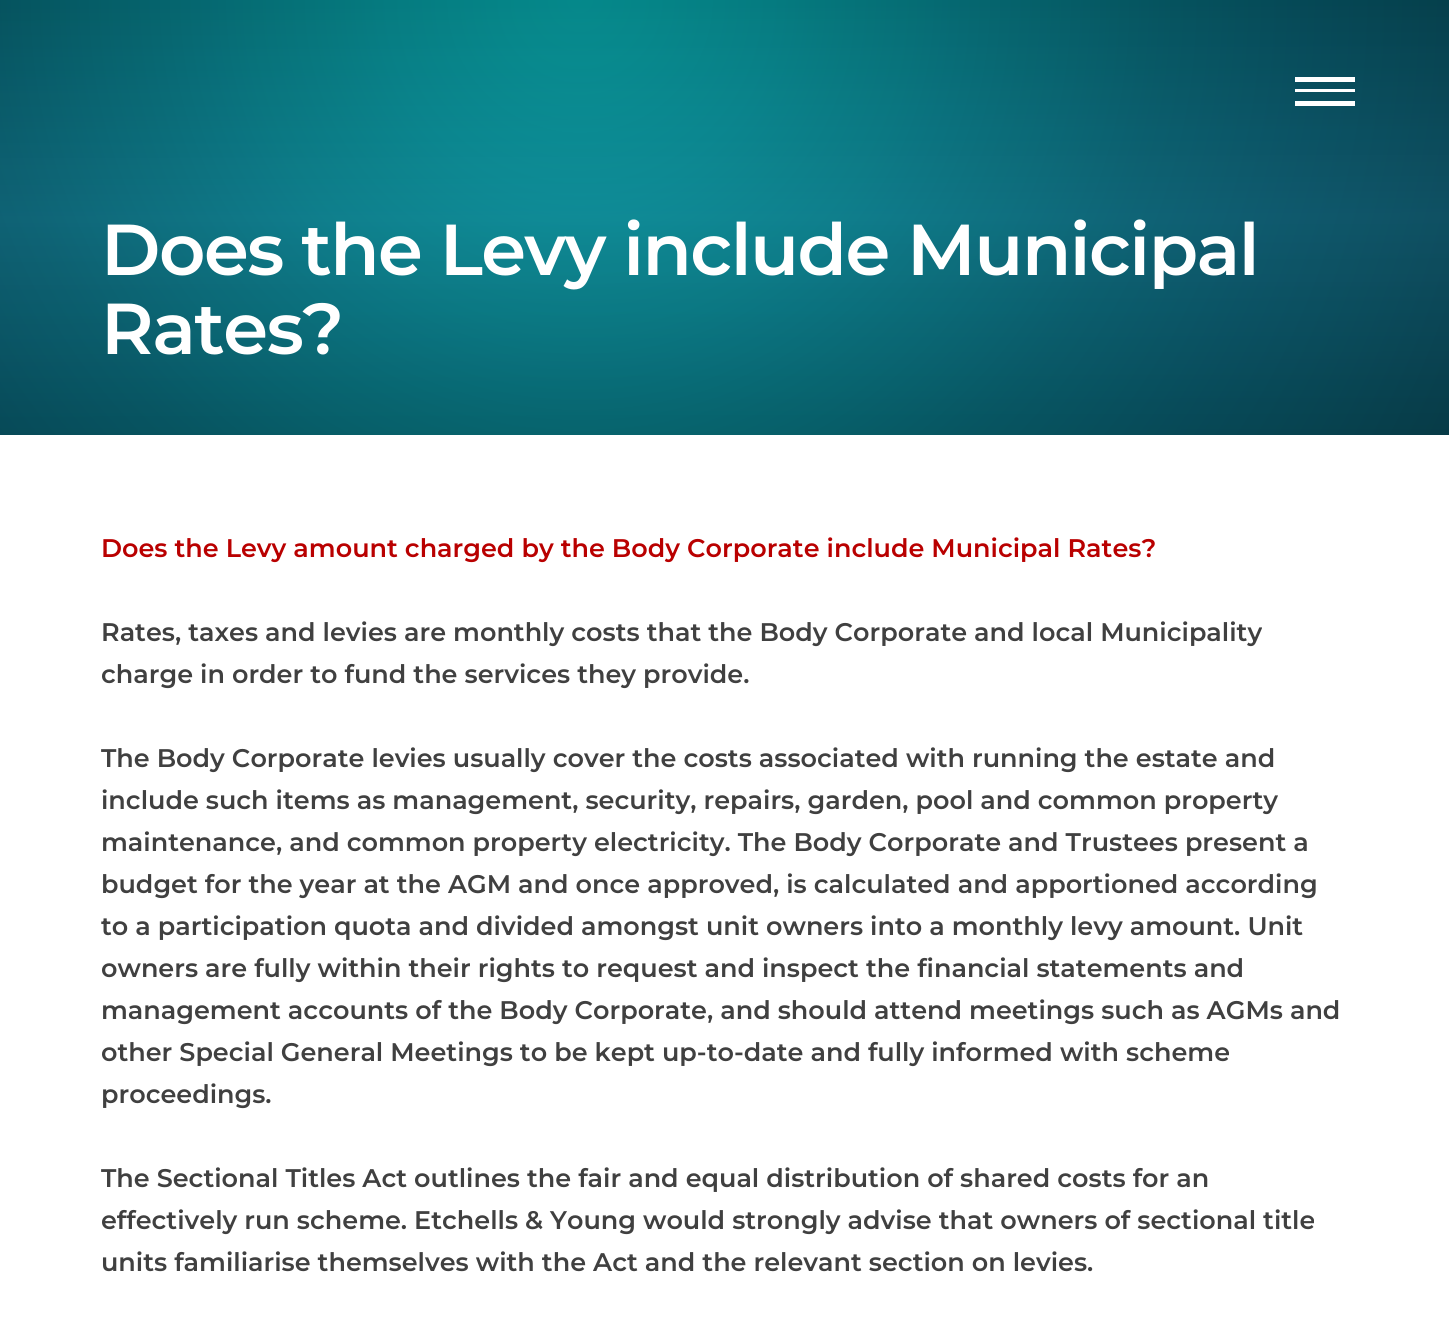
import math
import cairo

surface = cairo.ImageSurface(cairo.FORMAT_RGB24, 1449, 1324)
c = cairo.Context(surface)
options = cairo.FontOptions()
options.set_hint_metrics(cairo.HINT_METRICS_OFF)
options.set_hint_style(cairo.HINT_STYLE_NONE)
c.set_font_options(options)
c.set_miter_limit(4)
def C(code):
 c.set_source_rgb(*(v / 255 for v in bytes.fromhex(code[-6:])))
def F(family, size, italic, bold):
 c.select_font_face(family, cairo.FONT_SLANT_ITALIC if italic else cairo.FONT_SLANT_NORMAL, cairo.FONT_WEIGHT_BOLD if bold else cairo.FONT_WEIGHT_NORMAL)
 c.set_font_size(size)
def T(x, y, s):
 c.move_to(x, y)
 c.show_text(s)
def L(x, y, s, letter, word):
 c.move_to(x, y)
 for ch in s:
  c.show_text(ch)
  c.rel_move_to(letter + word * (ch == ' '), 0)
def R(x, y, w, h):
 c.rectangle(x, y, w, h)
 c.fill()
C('ffffff')
c.paint()
gradient = cairo.LinearGradient(725,435,724,0)
gradient.add_color_stop_rgba(0,0.043,0.235,0.29,1)
gradient.add_color_stop_rgba(.5,0.098,0.345,0.439,1)
gradient.add_color_stop_rgba(1,0.035,0.227,0.278,1)
c.set_source(gradient)
R(0,0,1449,435)
gradient = cairo.RadialGradient(580,0,0,580,0,972)
gradient.add_color_stop_rgba(0,0,0.992,0.937,.4)
gradient.add_color_stop_rgba(.07,0,0.957,0.906,.4)
gradient.add_color_stop_rgba(.2,0,0.859,0.831,.4)
gradient.add_color_stop_rgba(.27,0,0.792,0.769,.4)
gradient.add_color_stop_rgba(.32,0,0.745,0.733,.4)
gradient.add_color_stop_rgba(.34,0,0.729,0.718,.4)
gradient.add_color_stop_rgba(.38,0,0.682,0.69,.4)
gradient.add_color_stop_rgba(.47,0,0.596,0.608,.4)
gradient.add_color_stop_rgba(.48,0,0.588,0.604,.4)
gradient.add_color_stop_rgba(.6,0,0.471,0.506,.4)
gradient.add_color_stop_rgba(.75,0,0.361,0.416,.4)
gradient.add_color_stop_rgba(.88,0,0.29,0.333,.4)
gradient.add_color_stop_rgba(.95,0,0.247,0.286,.4)
gradient.add_color_stop_rgba(.98,0,0.231,0.267,.4)
gradient.add_color_stop_rgba(1,0,0.216,0.259,.4)
c.set_source(gradient)
R(0,0,1449,435)
C('ffffff')
R(1295,77,60,5)
R(1295,89,60,3)
R(1295,101,60,5)
F('Montserrat Thin',72,0,0)
L(101,275,'Does the Levy include Municipal',-1.5,0)
L(101,354,'Rates?',-1.5,0)
F('Montserrat Thin',25.5,0,0)
C('b90000')
T(101,557,'Does the Levy amount charged by the Body Corporate include Municipal Rates?')
C('404040')
T(101,641,'Rates, taxes and levies are monthly costs that the Body Corporate and local Municipality')
T(101,683,'charge in order to fund the services they provide.')
T(101,767,'The Body Corporate levies usually cover the costs associated with running the estate and')
T(101,809,'include such items as management, security, repairs, garden, pool and common property')
T(101,851,'maintenance, and common property electricity. The Body Corporate and Trustees present a')
T(101,893,'budget for the year at the AGM and once approved, is calculated and apportioned according')
T(101,935,'to a participation quota and divided amongst unit owners into a monthly levy amount. Unit')
T(101,977,'owners are fully within their rights to request and inspect the financial statements and')
T(101,1019,'management accounts of the Body Corporate, and should attend meetings such as AGMs and')
T(101,1061,'other Special General Meetings to be kept up-to-date and fully informed with scheme')
T(101,1103,'proceedings.')
T(101,1187,'The Sectional Titles Act outlines the fair and equal distribution of shared costs for an')
T(101,1229,'effectively run scheme. Etchells & Young would strongly advise that owners of sectional title')
T(101,1271,'units familiarise themselves with the Act and the relevant section on levies.')
surface.write_to_png('o.png')
